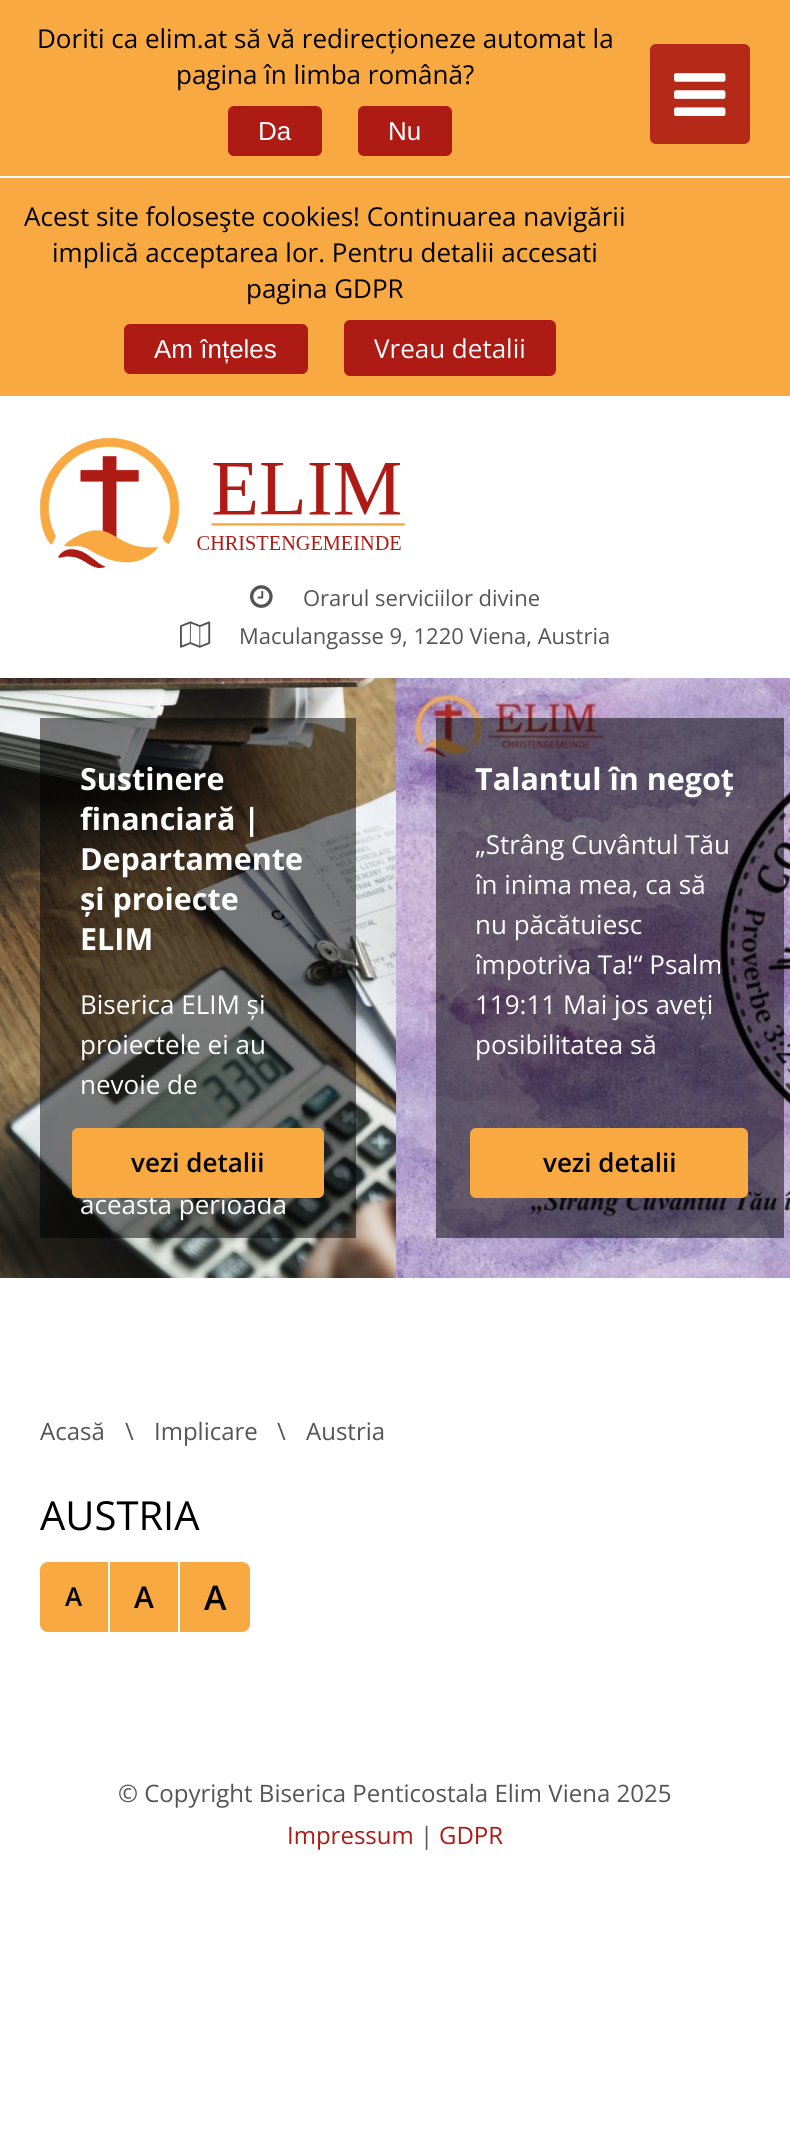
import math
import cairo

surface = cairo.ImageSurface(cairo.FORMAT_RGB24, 790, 2142)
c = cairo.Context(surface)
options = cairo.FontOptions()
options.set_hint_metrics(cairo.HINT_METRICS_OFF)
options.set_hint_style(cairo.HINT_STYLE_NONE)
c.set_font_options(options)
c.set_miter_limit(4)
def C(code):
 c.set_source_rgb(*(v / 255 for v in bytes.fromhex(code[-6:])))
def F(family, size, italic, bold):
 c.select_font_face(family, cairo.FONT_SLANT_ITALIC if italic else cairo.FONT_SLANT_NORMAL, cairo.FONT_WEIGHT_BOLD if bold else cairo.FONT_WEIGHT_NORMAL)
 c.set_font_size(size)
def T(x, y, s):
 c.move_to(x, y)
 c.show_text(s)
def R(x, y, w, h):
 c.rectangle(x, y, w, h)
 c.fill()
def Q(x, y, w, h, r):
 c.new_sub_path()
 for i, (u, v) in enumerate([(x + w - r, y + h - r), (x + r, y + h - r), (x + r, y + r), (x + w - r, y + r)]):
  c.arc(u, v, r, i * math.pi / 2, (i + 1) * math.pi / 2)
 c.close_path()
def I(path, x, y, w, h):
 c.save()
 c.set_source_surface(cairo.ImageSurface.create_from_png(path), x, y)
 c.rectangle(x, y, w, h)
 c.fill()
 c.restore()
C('ffffff')
c.paint()
C('f8a941')
R(0,0,790,176)
F('Open Sans',26,0,0)
C('000000')
T(37,48,'Doriti ca elim.at să vă redirecționeze automat la')
T(176,84,'pagina în limba română?')
C('ae1b15')
Q(228,106,94,50,6)
c.fill()
F('Liberation Sans',26,0,0)
C('ffffff')
T(258,140,'Da')
C('ae1b15')
Q(358,106,94,50,6)
c.fill()
C('ffffff')
T(388,140,'Nu')
C('f8a941')
R(0,178,790,218)
F('Open Sans',26,0,0)
C('000000')
T(24,226,'Acest site foloseşte cookies! Continuarea navigării')
T(52,262,'implică acceptarea lor. Pentru detalii accesati')
T(246,298,'pagina GDPR')
C('ae1b15')
Q(124,324,184,50,6)
c.fill()
F('Liberation Sans',26,0,0)
C('ffffff')
T(154,358,'Am înțeles')
C('ae1b15')
Q(344,320,212,56,6)
c.fill()
F('Open Sans',26,0,0)
C('ffffff')
T(374,358,'Vreau detalii')
C('b52919')
Q(650,44,100,100,6)
c.fill()
I('1.png',674,73,52,43)
I('2.png',40,438,365,130)
I('3.png',250,585,23,23)
F('Open Sans',22,0,0)
C('555555')
T(303,606,'Orarul serviciilor divine')
I('4.png',180,621,31,27)
T(239,644,'Maculangasse 9, 1220 Viena, Austria')
I('5.png',0,678,396,600)
c.set_source_rgba(0,0,0,0.5)
R(40,718,316,520)
F('Open Sans',30.5,0,1)
C('ffffff')
T(80,790,'Sustinere')
T(80,830,'financiară |')
T(80,870,'Departamente')
T(80,910,'și proiecte')
T(80,950,'ELIM')
F('Open Sans',26,0,0)
T(80,1014,'Biserica ELIM și')
T(80,1054,'proiectele ei au')
T(80,1094,'nevoie de')
T(80,1214,'această perioadă')
C('f8a941')
Q(72,1128,252,70,6)
c.fill()
F('Open Sans SemiBold',26,0,0)
C('000000')
T(131,1172,'vezi detalii')
I('6.png',396,678,394,600)
c.set_source_rgba(0,0,0,0.5)
R(436,718,348,520)
F('Open Sans',30.5,0,1)
C('ffffff')
T(475,790,'Talantul în negoț')
F('Open Sans',26,0,0)
T(475,854,'„Strâng Cuvântul Tău')
c.save()
c.rectangle(476,798,268,270)
c.clip()
T(475,894,'în inima mea, ca să')
c.restore()
T(475,934,'nu păcătuiesc')
c.save()
c.rectangle(476,798,268,270)
c.clip()
T(475,974,'împotriva Ta!“ Psalm')
c.restore()
T(475,1014,'119:11 Mai jos aveți')
T(475,1054,'posibilitatea să')
C('f8a941')
Q(470,1128,278,70,6)
c.fill()
F('Open Sans SemiBold',26,0,0)
C('000000')
T(543,1172,'vezi detalii')
F('Open Sans',24,0,0)
C('555555')
T(40,1440,'Acasă')
T(125,1440,'\\')
T(154,1440,'Implicare')
T(277,1440,'\\')
T(306,1440,'Austria')
F('Open Sans',40,0,0)
C('000000')
T(40,1530,'AUSTRIA')
C('f8a941')
c.new_path()
c.move_to(48,1562)
c.line_to(110,1562)
c.line_to(110,1632)
c.line_to(48,1632)
c.curve_to(43.5,1632,40,1628.5,40,1624)
c.line_to(40,1570)
c.curve_to(40,1565.5,43.5,1562,48,1562)
c.close_path()
c.fill()
C('ffffff')
R(108,1562,2,70)
F('Open Sans SemiBold',26,0,0)
C('000000')
T(65,1606,'A')
C('f8a941')
R(110,1562,68,70)
F('Open Sans SemiBold',30,0,0)
C('000000')
T(134,1608,'A')
C('f8a941')
c.new_path()
c.move_to(180,1562)
c.line_to(242,1562)
c.curve_to(246.5,1562,250,1565.5,250,1570)
c.line_to(250,1624)
c.curve_to(250,1628.5,246.5,1632,242,1632)
c.line_to(180,1632)
c.close_path()
c.fill()
F('Open Sans SemiBold',34,0,0)
C('000000')
T(204,1610,'A')
F('Open Sans',24,0,0)
C('555555')
T(118,1802,'© Copyright Biserica Penticostala Elim Viena 2025')
C('ae1b15')
T(287,1844,'Impressum')
C('555555')
T(420,1844,'|')
C('ae1b15')
T(439,1844,'GDPR')
surface.write_to_png('o.png')
